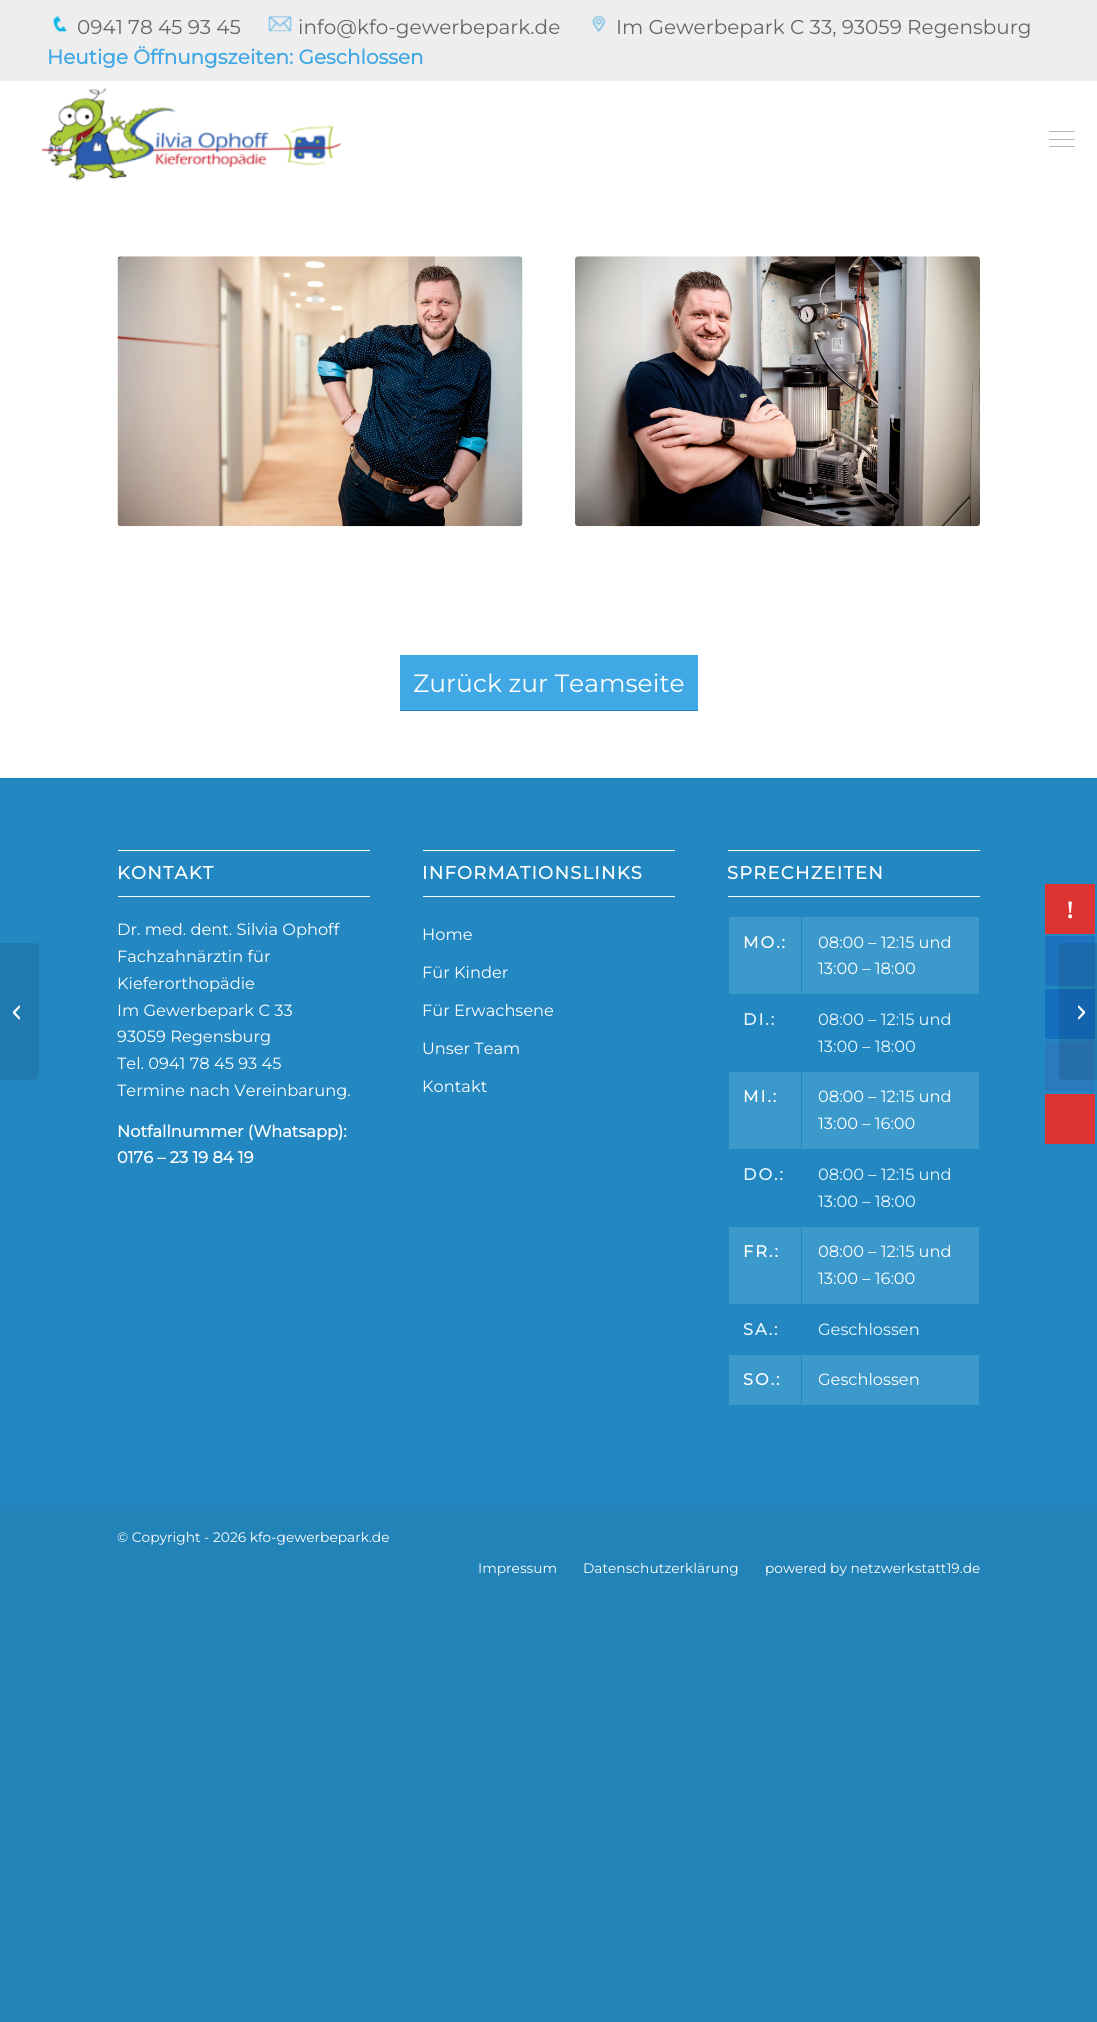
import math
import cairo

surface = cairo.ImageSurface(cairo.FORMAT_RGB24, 1097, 2022)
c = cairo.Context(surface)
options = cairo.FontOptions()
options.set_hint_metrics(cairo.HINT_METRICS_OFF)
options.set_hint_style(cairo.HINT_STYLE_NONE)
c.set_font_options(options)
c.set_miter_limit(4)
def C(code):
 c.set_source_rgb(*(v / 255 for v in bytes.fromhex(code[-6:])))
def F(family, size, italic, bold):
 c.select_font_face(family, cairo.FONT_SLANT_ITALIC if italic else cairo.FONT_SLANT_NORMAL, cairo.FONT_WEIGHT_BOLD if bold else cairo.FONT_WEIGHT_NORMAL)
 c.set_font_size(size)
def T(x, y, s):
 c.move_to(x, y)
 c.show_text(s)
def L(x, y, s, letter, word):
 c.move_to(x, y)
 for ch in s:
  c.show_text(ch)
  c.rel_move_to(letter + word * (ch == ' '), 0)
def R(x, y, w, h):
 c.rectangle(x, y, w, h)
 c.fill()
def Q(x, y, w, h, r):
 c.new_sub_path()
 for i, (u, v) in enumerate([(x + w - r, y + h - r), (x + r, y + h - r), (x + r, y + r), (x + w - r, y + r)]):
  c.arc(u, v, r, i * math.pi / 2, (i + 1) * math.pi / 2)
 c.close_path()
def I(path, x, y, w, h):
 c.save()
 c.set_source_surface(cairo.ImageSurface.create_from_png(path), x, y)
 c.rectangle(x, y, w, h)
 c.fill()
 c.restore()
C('2183b8')
c.paint()
C('ffffff')
R(0,81,1097,697)
C('eeeeee')
R(0,0,1097,81)
I('1.png',53,16,14,16)
F('Montserrat Thin',20,0,0)
C('666666')
T(77,34,'0941 78 45 93 45')
I('2.png',268,16,24,16)
T(298,34,'info@kfo-gewerbepark.de')
I('3.png',592,16,14,16)
T(616,34,'Im Gewerbepark C 33, 93059 Regensburg')
F('Montserrat',20,0,1)
C('40a8e4')
T(47,64,'Heutige Öffnungszeiten: Geschlossen')
I('4.png',41,88,300,93)
C('b5b5b5')
Q(1049,139,26,1,.5)
c.fill()
Q(1049,131,26,1,.5)
c.fill()
Q(1049,146,26,1,.5)
c.fill()
C('2388c2')
R(0,778,1097,727)
C('207aaf')
c.new_path()
c.move_to(0,943)
c.line_to(34,943)
c.curve_to(37,943,39,945,39,948)
c.line_to(39,1075)
c.curve_to(39,1078,37,1080,34,1080)
c.line_to(0,1080)
c.close_path()
c.fill()
I('5.png',13,1005,7,15)
I('6.png',117,256,406,271)
I('7.png',575,256,405,271)
C('40a8e4')
R(400,655,298,55)
C('2086c2')
R(400,710,298,1)
F('Montserrat Thin',25,0,0)
C('ffffff')
T(413,692,'Zurück zur Teamseite')
R(118,850,252,1)
R(118,896,252,1)
F('Montserrat',17.9,0,1)
L(117,879,'KONTAKT',1.25,0)
F('Montserrat Thin',16.25,0,0)
T(117,935,'Dr. med. dent. Silvia Ophoff')
T(117,962,'Fachzahnärztin für')
T(117,989,'Kieferorthopädie')
T(117,1016,'Im Gewerbepark C 33')
T(117,1042,'93059 Regensburg')
T(117,1069,'Tel. 0941 78 45 93 45')
T(117,1096,'Termine nach Vereinbarung.')
F('Montserrat',16.25,0,1)
T(117,1137,'Notfallnummer (Whatsapp):')
T(117,1163,'0176 – 23 19 84 19')
R(423,850,252,1)
R(423,896,252,1)
F('Montserrat',17.9,0,1)
L(422,879,'INFORMATIONSLINKS',1.25,0)
F('Montserrat Thin',16.25,0,0)
T(422,940,'Home')
T(422,978,'Für Kinder')
T(422,1016,'Für Erwachsene')
T(422,1054,'Unser Team')
T(422,1092,'Kontakt')
R(728,850,252,1)
R(728,896,252,1)
F('Montserrat',17.9,0,1)
L(727,879,'SPRECHZEITEN',1.25,0)
C('3b99cc')
R(729,917,250,488)
C('2388c2')
R(801,994,179,1)
R(801,916,1,79)
R(728,994,75,1)
F('Montserrat',16.25,0,1)
C('ffffff')
L(743,948,'MO.:',2,0)
F('Montserrat Thin',16.25,0,0)
T(818,948,'08:00 – 12:15 und')
T(818,974,'13:00 – 18:00')
C('2388c2')
R(729,995,250,76)
F('Montserrat',16.25,0,1)
C('e8f7ff')
L(743,1025,'DI.:',2,0)
C('2388c2')
R(729,1149,250,77)
R(801,1071,1,79)
R(728,1071,252,1)
F('Montserrat Thin',16.25,0,0)
C('e8f7ff')
T(818,1025,'08:00 – 12:15 und')
T(818,1052,'13:00 – 18:00')
F('Montserrat',16.25,0,1)
C('ffffff')
L(743,1102,'MI.:',2,0)
F('Montserrat Thin',16.25,0,0)
T(818,1102,'08:00 – 12:15 und')
T(818,1129,'13:00 – 16:00')
F('Montserrat',16.25,0,1)
C('e8f7ff')
L(743,1180,'DO.:',2,0)
C('2388c2')
R(729,1304,250,51)
R(801,1226,1,79)
R(728,1226,252,1)
F('Montserrat Thin',16.25,0,0)
C('e8f7ff')
T(818,1180,'08:00 – 12:15 und')
T(818,1207,'13:00 – 18:00')
F('Montserrat',16.25,0,1)
C('ffffff')
L(743,1257,'FR.:',2,0)
F('Montserrat Thin',16.25,0,0)
T(818,1257,'08:00 – 12:15 und')
T(818,1284,'13:00 – 16:00')
F('Montserrat',16.25,0,1)
C('e8f7ff')
L(743,1335,'SA.:',2,0)
F('Montserrat Thin',16.25,0,0)
T(818,1335,'Geschlossen')
C('2388c2')
R(801,1354,1,52)
F('Montserrat',16.25,0,1)
C('ffffff')
L(743,1385,'SO.:',2,0)
F('Montserrat Thin',16.25,0,0)
T(818,1385,'Geschlossen')
F('Montserrat Thin',13.75,0,0)
T(117,1542,'© Copyright - 2026 kfo-gewerbepark.de')
T(478,1573,'Impressum')
T(583,1573,'Datenschutzerklärung')
T(765,1573,'powered by netzwerkstatt19.de')
C('1e73be')
R(1045,936,50,50)
C('156fbf')
R(1045,989,50,50)
C('2b7abf')
R(1045,1041,50,50)
c.set_source_rgba(0,0,0,0.1)
c.new_path()
c.move_to(1064,943)
c.line_to(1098,943)
c.line_to(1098,1080)
c.line_to(1064,1080)
c.curve_to(1061,1080,1059,1078,1059,1075)
c.line_to(1059,948)
c.curve_to(1059,945,1061,943,1064,943)
c.close_path()
c.fill()
I('8.png',1078,1005,7,15)
C('dd3333')
R(1045,884,50,50)
F('Liberation Serif',25,0,1)
C('ffffff')
T(1066,918,'!')
C('dd3333')
R(1045,1094,50,50)
surface.write_to_png('o.png')
